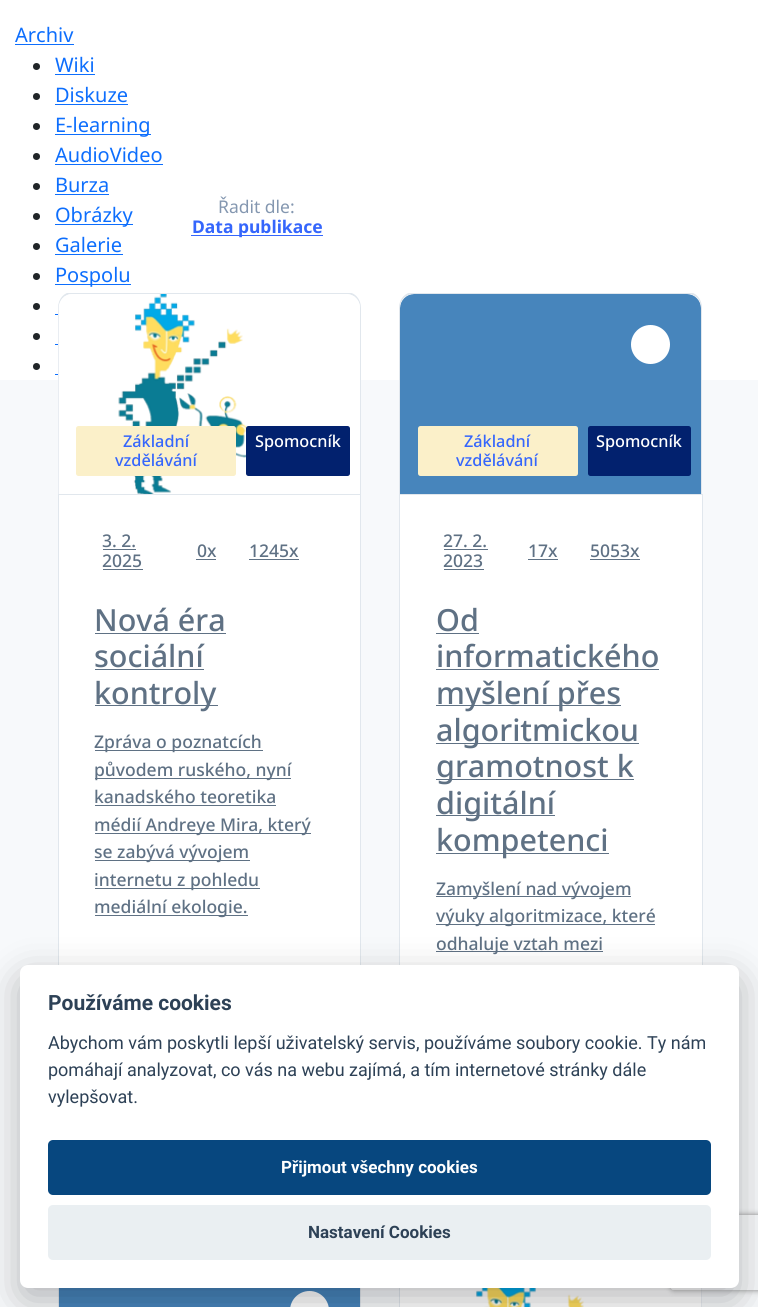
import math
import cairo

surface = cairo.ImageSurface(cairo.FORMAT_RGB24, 758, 1307)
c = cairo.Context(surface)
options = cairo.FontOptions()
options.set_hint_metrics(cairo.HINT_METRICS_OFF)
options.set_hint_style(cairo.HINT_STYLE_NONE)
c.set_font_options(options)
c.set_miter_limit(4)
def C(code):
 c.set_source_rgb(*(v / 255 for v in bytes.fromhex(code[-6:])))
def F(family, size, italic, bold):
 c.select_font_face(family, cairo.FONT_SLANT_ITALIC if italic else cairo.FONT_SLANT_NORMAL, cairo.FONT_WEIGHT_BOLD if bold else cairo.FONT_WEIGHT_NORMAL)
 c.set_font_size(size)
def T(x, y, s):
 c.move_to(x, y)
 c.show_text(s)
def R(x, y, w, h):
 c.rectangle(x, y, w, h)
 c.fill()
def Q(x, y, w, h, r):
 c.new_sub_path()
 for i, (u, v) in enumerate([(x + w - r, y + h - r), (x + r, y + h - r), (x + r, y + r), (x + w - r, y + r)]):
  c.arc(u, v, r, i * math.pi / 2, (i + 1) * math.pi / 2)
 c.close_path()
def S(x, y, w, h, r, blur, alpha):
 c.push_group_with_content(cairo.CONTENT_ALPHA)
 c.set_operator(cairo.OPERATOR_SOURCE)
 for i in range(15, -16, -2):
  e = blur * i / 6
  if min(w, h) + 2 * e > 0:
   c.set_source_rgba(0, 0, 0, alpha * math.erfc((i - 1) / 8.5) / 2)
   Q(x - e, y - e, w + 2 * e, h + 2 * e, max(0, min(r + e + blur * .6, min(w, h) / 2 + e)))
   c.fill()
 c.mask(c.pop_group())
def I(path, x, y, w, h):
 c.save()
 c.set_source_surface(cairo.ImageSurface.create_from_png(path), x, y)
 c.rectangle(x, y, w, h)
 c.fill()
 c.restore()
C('f7f9fb')
c.paint()
C('ffffff')
R(0,0,758,380)
F('Noto Sans',20,0,0)
C('0d6efd')
T(15,42,'Archiv')
R(15,44,59,1)
C('212529')
c.new_path()
c.arc(36.5,66.5,3.5,0,2 * math.pi)
c.fill()
C('0d6efd')
T(55,72,'Wiki')
R(55,74,40,1)
C('212529')
c.new_path()
c.arc(36.5,96.5,3.5,0,2 * math.pi)
c.fill()
C('0d6efd')
T(55,102,'Diskuze')
R(55,104,73,1)
C('212529')
c.new_path()
c.arc(36.5,126.5,3.5,0,2 * math.pi)
c.fill()
C('0d6efd')
R(55,134,96,1)
T(55,132,'E-learning')
C('212529')
c.new_path()
c.arc(36.5,156.5,3.5,0,2 * math.pi)
c.fill()
C('0d6efd')
T(55,162,'AudioVideo')
R(55,164,108,1)
C('212529')
c.new_path()
c.arc(36.5,186.5,3.5,0,2 * math.pi)
c.fill()
C('0d6efd')
T(55,192,'Burza')
R(55,194,54,1)
C('212529')
c.new_path()
c.arc(36.5,216.5,3.5,0,2 * math.pi)
c.fill()
C('0d6efd')
R(55,224,78,1)
T(55,222,'Obrázky')
C('212529')
c.new_path()
c.arc(36.5,246.5,3.5,0,2 * math.pi)
c.fill()
C('0d6efd')
T(55,252,'Galerie')
R(55,254,68,1)
C('212529')
c.new_path()
c.arc(36.5,276.5,3.5,0,2 * math.pi)
c.fill()
C('0d6efd')
R(55,284,76,1)
T(55,282,'Pospolu')
C('212529')
c.new_path()
c.arc(36.5,306.5,3.5,0,2 * math.pi)
c.fill()
C('0d6efd')
R(55,314,3,1)
C('212529')
c.arc(36.5,336.5,3.5,0,2 * math.pi)
c.fill()
C('0d6efd')
R(55,344,3,1)
C('212529')
c.arc(36.5,366.5,3.5,0,2 * math.pi)
c.fill()
C('0d6efd')
R(55,374,3,1)
F('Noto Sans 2',17.5,0,0)
C('8497b0')
T(218,213,'Řadit dle:')
C('3566fc')
R(191,235,132,1)
F('Noto Sans',17.5,0,1)
T(192,233,'Data publikace')
c.save()
c.rectangle(58,293,303,891)
c.clip()
C('e1e7ed')
c.set_fill_rule(cairo.FILL_RULE_EVEN_ODD)
c.new_path()
c.move_to(72,292)
c.line_to(346,292)
c.curve_to(355,292,361,299,361,308)
c.line_to(361,494)
c.line_to(58,494)
c.line_to(58,308)
c.curve_to(58,299,64,292,72,292)
c.close_path()
c.move_to(72,294)
c.line_to(346,294)
c.curve_to(354,294,360,300,360,308)
c.line_to(360,494)
c.line_to(59,494)
c.line_to(59,308)
c.curve_to(59,300,65,294,72,294)
c.close_path()
c.fill()
c.restore()
I('1.png',58,294,302,200)
C('fbf0c9')
Q(76,426,160,50,2.5)
c.fill()
F('Noto Sans Medium',16.25,0,0)
C('3566fc')
T(123,447,'Základní')
T(115,466,'vzdělávání')
C('02216e')
Q(246,426,104,50,2.5)
c.fill()
C('ffffff')
T(255,447,'Spomocník')
R(59,495,301,470)
c.rectangle(58.5,494.5,302,629)
C('e1e7ed')
c.set_line_width(1)
c.stroke()
F('Noto Sans Medium',17.5,0,0)
C('5f7184')
T(102,547,'3. 2.')
R(103,549,33,1)
T(102,567,'2025')
R(103,569,40,1)
T(197,557,'0x')
R(196,559,20,1)
T(249,557,'1245x')
R(249,559,50,1)
F('Noto Sans Medium',30.5,0,0)
T(94,631,'Nová éra')
R(95,633,131,1)
T(94,667,'sociální')
R(95,669,109,1)
R(95,705,123,1)
T(94,704,'kontroly')
R(95,750,168,1)
F('Noto Sans Medium',17.5,0,0)
T(94,748,'Zpráva o poznatcích')
R(95,778,196,1)
T(94,776,'původem ruského, nyní')
T(94,803,'kanadského teoretika')
R(95,805,181,1)
R(95,833,216,1)
T(94,831,'médií Andreye Mira, který')
R(95,860,155,1)
T(94,858,'se zabývá vývojem')
R(95,888,165,1)
T(94,886,'internetu z pohledu')
R(95,915,153,1)
T(94,913,'mediální ekologie.')
C('4785bc')
c.new_path()
c.move_to(414,294)
c.line_to(687,294)
c.curve_to(694.5,294,701,300.5,701,308)
c.line_to(701,494)
c.line_to(400,494)
c.line_to(400,308)
c.curve_to(400,300.5,406.5,294,414,294)
c.close_path()
c.fill()
c.save()
c.rectangle(399,293,304,891)
c.clip()
C('e1e7ed')
c.set_fill_rule(cairo.FILL_RULE_EVEN_ODD)
c.new_path()
c.move_to(414,292)
c.line_to(688,292)
c.curve_to(696,292,702,299,702,308)
c.line_to(702,494)
c.line_to(399,494)
c.line_to(399,308)
c.curve_to(399,299,405,292,414,292)
c.close_path()
c.move_to(414,294)
c.line_to(688,294)
c.curve_to(695,294,701,300,701,308)
c.line_to(701,494)
c.line_to(400,494)
c.line_to(400,308)
c.curve_to(400,300,406,294,414,294)
c.close_path()
c.fill()
c.restore()
C('ffffff')
c.arc(650.5,344.5,19.5,0,2 * math.pi)
c.fill()
C('fbf0c9')
Q(418,426,160,50,2.5)
c.fill()
F('Noto Sans Medium',16.25,0,0)
C('3566fc')
T(464,447,'Základní')
T(456,466,'vzdělávání')
C('02216e')
Q(588,426,103,50,2.5)
c.fill()
C('ffffff')
T(596,447,'Spomocník')
R(400,495,302,470)
c.rectangle(399.5,494.5,303,629)
C('e1e7ed')
c.stroke()
F('Noto Sans Medium',17.5,0,0)
C('5f7184')
T(443,547,'27. 2.')
R(444,549,44,1)
T(443,567,'2023')
R(444,569,40,1)
T(528,557,'17x')
R(528,559,30,1)
T(590,557,'5053x')
R(590,559,50,1)
F('Noto Sans Medium',30.5,0,0)
T(436,631,'Od')
R(436,633,43,1)
T(436,667,'informatického')
R(436,669,223,1)
R(436,705,185,1)
T(436,704,'myšlení přes')
R(436,743,203,1)
T(436,741,'algoritmickou')
R(436,779,198,1)
T(436,777,'gramotnost k')
R(436,815,119,1)
T(436,814,'digitální')
R(436,853,173,1)
T(436,851,'kompetenci')
R(436,896,195,1)
F('Noto Sans Medium',17.5,0,0)
T(436,895,'Zamyšlení nad vývojem')
R(436,924,219,1)
T(436,922,'výuky algoritmizace, které')
R(436,951,167,1)
T(436,950,'odhaluje vztah mezi')
C('4785bc')
R(59,1288,301,19)
C('e1e7ed')
c.set_fill_rule(cairo.FILL_RULE_EVEN_ODD)
c.new_path()
c.move_to(72,1259)
c.line_to(346,1259)
c.curve_to(355,1259,361,1265,361,1274)
c.line_to(361,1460)
c.line_to(58,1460)
c.line_to(58,1274)
c.curve_to(58,1265,64,1259,72,1259)
c.close_path()
c.move_to(72,1260)
c.line_to(346,1260)
c.curve_to(354,1260,360,1266,360,1274)
c.line_to(360,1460)
c.line_to(59,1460)
c.line_to(59,1274)
c.curve_to(59,1266,65,1260,72,1260)
c.close_path()
c.fill()
C('ffffff')
Q(290,1291,39,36,19.5)
c.fill()
C('e1e7ed')
c.new_path()
c.move_to(414,1259)
c.line_to(688,1259)
c.curve_to(696,1259,702,1265,702,1274)
c.line_to(702,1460)
c.line_to(399,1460)
c.line_to(399,1274)
c.curve_to(399,1265,405,1259,414,1259)
c.close_path()
c.move_to(414,1260)
c.line_to(688,1260)
c.curve_to(695,1260,701,1266,701,1274)
c.line_to(701,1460)
c.line_to(400,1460)
c.line_to(400,1274)
c.curve_to(400,1266,406,1260,414,1260)
c.close_path()
c.fill()
I('2.png',400,1288,302,19)
C('020203')
S(20,978,719,322,8,19,.28)
c.save()
c.new_path()
c.move_to(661,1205)
c.line_to(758,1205)
c.line_to(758,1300)
c.line_to(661,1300)
c.close_path()
c.move_to(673.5,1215)
c.line_to(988.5,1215)
c.curve_to(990,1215,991,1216,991,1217.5)
c.line_to(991,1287.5)
c.curve_to(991,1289,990,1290,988.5,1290)
c.line_to(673.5,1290)
c.curve_to(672,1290,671,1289,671,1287.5)
c.line_to(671,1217.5)
c.curve_to(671,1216,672,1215,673.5,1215)
c.close_path()
c.clip()
C('808080')
S(671,1215,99,75,2.5,3,1)
c.restore()
C('ffffff')
Q(20,965,719,323,8)
c.fill()
F('Roboto',21,0,1)
C('2d4156')
T(48,1010,'Používáme cookies')
F('Roboto',18,0,0)
T(48,1049,'Abychom vám poskytli lepší uživatelský servis, používáme soubory cookie. Ty nám')
T(48,1076,'pomáhají analyzovat, co vás na webu zajímá, a tím internetové stránky dále')
T(48,1103,'vylepšovat.')
C('07477f')
Q(48,1140,663,55,5)
c.fill()
F('Roboto',17,0,1)
C('ffffff')
T(281,1173,'Přijmout všechny cookies')
C('eaeff2')
Q(48,1205,663,55,5)
c.fill()
C('2d4156')
T(308,1238,'Nastavení Cookies')
surface.write_to_png('o.png')
